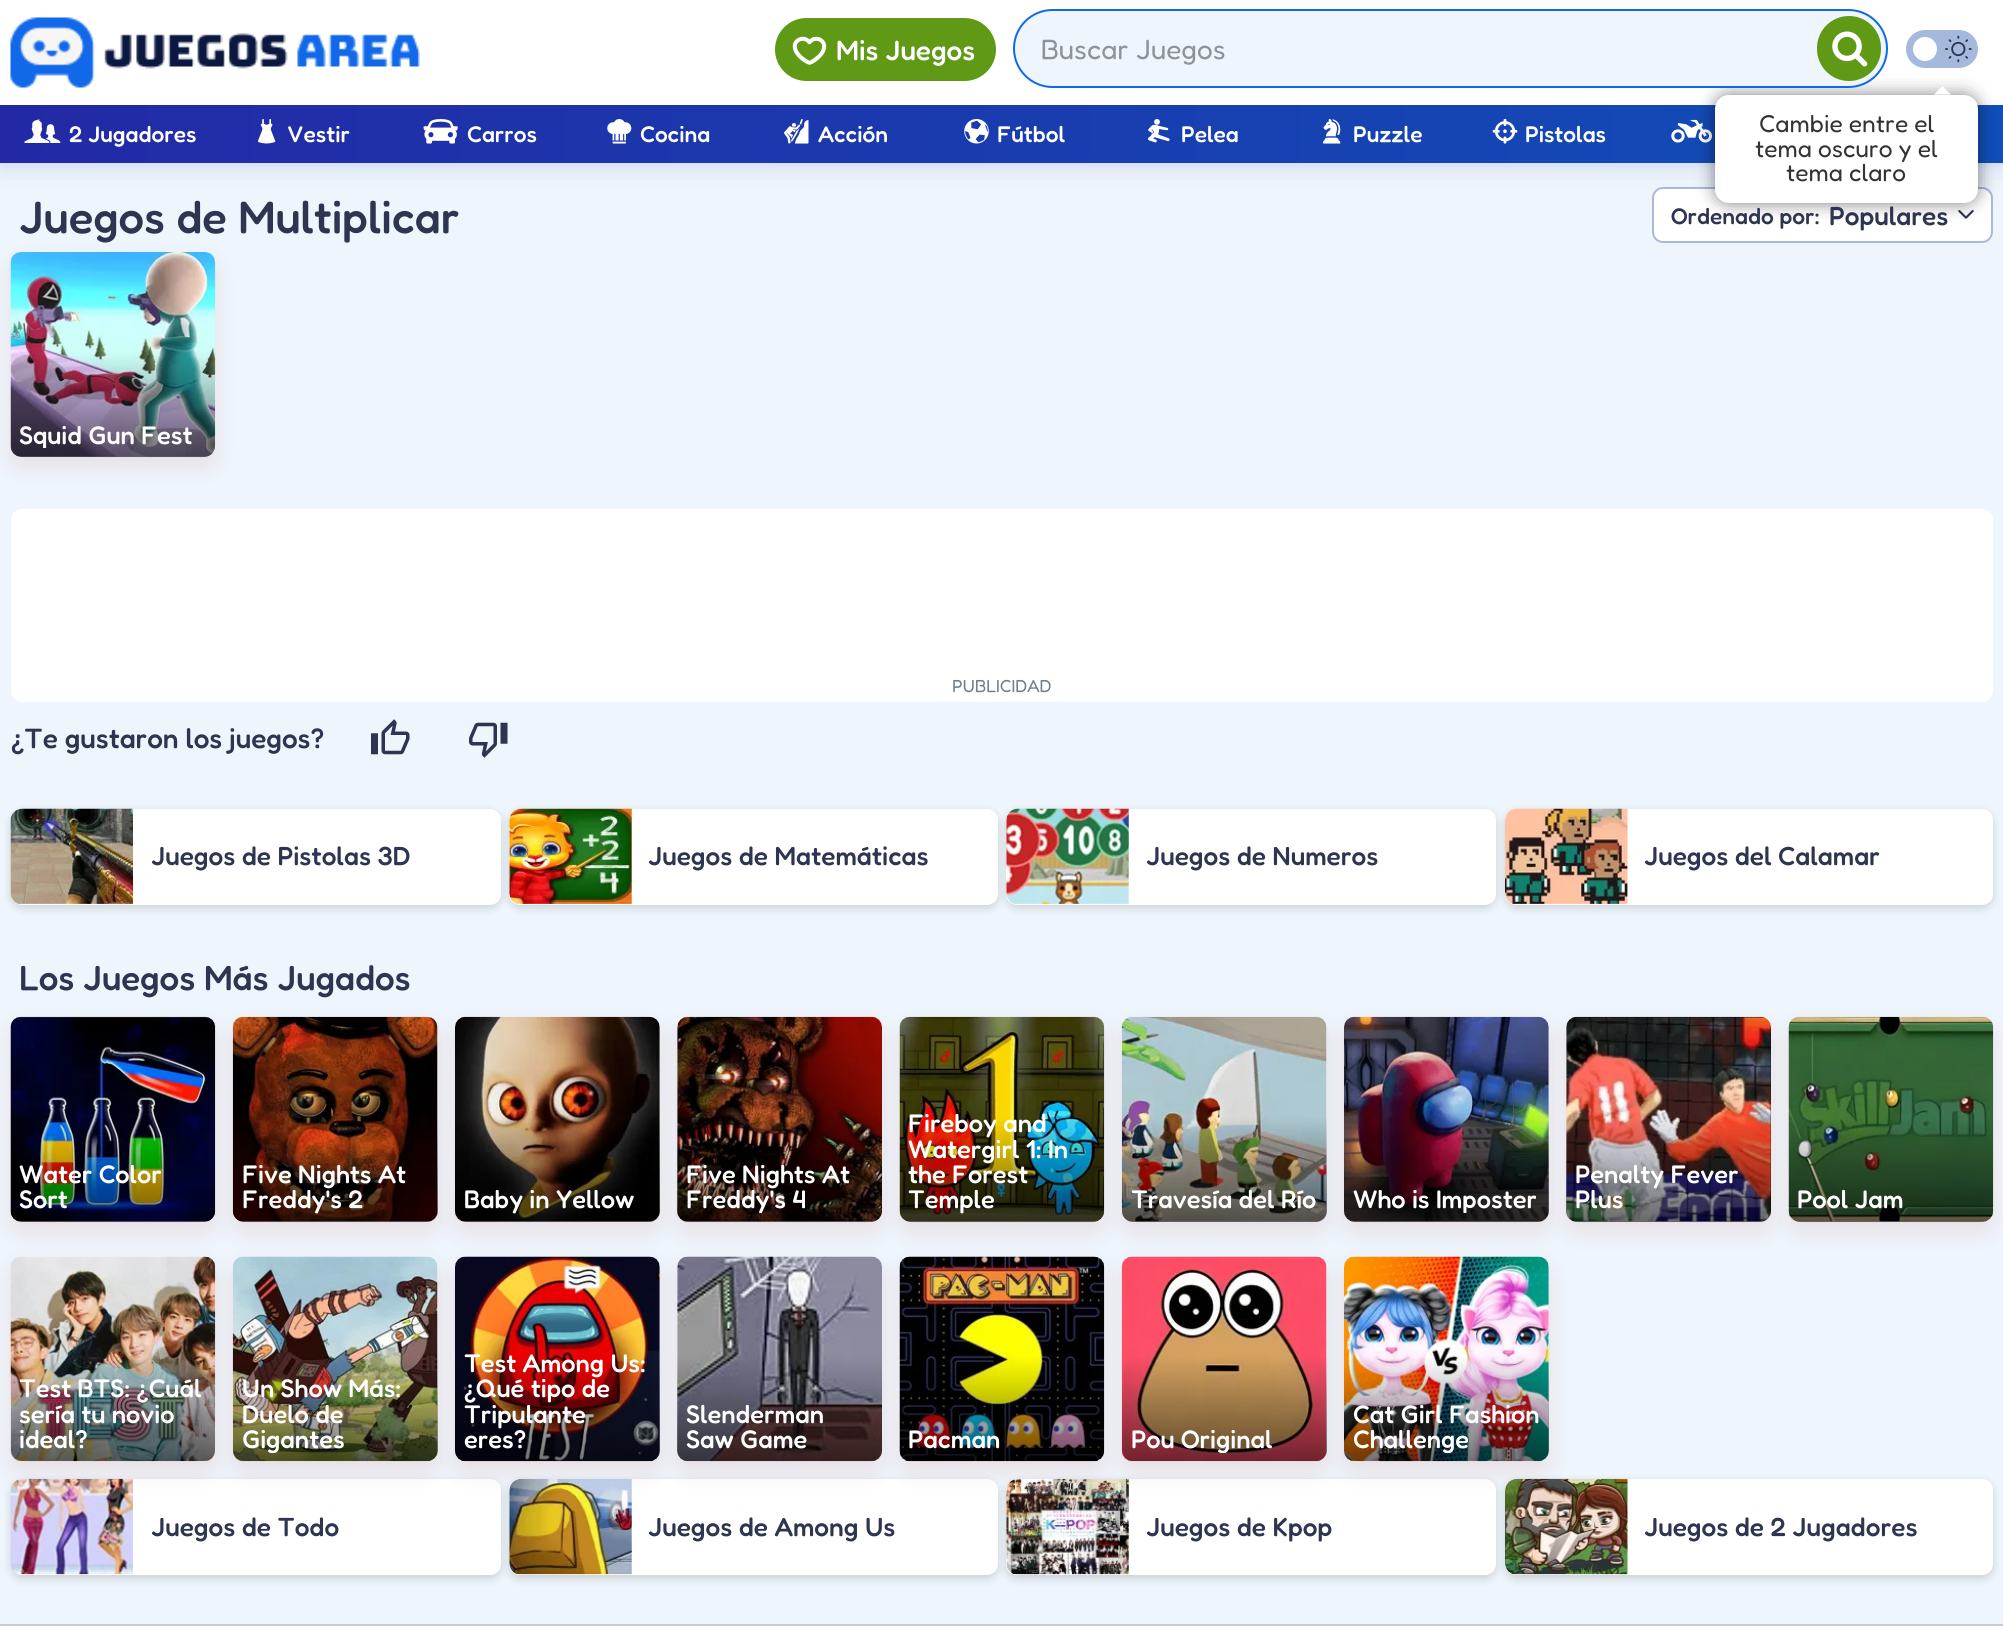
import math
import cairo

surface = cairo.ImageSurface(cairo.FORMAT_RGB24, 2003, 1642)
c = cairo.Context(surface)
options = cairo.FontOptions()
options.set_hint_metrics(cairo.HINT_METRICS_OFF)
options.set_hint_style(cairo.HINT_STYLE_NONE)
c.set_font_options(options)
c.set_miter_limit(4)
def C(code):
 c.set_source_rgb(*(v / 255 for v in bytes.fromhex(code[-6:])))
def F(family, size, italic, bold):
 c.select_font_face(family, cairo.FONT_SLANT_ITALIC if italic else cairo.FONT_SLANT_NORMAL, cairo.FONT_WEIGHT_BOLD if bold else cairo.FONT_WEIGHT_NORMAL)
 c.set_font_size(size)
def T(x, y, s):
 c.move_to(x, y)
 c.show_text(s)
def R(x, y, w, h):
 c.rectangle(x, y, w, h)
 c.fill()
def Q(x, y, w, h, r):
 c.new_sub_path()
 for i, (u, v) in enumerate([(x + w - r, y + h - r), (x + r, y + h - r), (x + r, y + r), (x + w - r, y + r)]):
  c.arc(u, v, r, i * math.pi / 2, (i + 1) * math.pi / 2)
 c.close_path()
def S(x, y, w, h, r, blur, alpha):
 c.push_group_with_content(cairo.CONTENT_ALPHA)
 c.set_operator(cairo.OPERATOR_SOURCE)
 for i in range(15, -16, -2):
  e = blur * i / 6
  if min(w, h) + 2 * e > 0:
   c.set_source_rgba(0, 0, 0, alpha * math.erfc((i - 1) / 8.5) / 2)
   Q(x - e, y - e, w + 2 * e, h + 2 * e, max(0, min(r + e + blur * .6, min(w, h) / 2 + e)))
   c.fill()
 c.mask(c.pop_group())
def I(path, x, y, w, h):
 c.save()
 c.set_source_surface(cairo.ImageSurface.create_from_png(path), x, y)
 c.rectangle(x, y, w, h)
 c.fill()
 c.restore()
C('eef5fc')
c.paint()
C('193da9')
S(0,2,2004,163,0,2,.05)
S(0,2,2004,163,0,13,.15)
C('ffffff')
R(0,0,2003,105)
I('1.png',10,17,410,71)
C('5f9915')
Q(777,20,217,59,29.5)
c.fill_preserve()
c.set_line_width(4)
c.stroke()
I('2.png',792,36,35,29)
F('Fredoka Light',28,0,0)
C('ffffff')
T(836,60,'Mis Juegos')
C('a5b9dd')
Q(1906,30,72,38,19)
c.fill()
gradient = cairo.LinearGradient(-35,125,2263,144)
gradient.add_color_stop_rgba(0,0.137,0.157,0.647,1)
gradient.add_color_stop_rgba(1,0.055,0.329,0.733,1)
c.set_source(gradient)
R(0,105,2003,58)
I('14.png',1671,119,41,24)
C('ffffff')
Q(1653,188,339,54,10)
c.fill_preserve()
C('aab8e1')
c.set_line_width(2)
c.stroke()
I('15.png',1958,210,16,9)
C('000000')
S(1715,95,263,108,14,9,.5)
C('eef5fc')
Q(1014,10,873,77,38.5)
c.fill_preserve()
C('1168e9')
c.stroke()
F('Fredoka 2 Light',28,0,0)
C('8f9397')
T(1041,59,'Buscar Juegos')
C('5f9915')
Q(1817,16,64,65,32)
c.fill()
I('3.png',1832,31,36,36)
C('ffffff')
c.arc(1925,49,12,0,2 * math.pi)
c.fill()
I('4.png',1945,35,27,28)
Q(1715,95,263,108,14)
c.fill()
c.new_path()
c.move_to(1951,94.5)
c.line_to(1934,94.5)
c.line_to(1942.5,86)
c.close_path()
c.fill()
F('Fredoka 2 Light',24.5,0,0)
C('333333')
T(1759,132,'Cambie entre el')
T(1755,157,'tema oscuro y el')
T(1786,181,'tema claro')
I('5.png',24,119,37,24)
F('Fredoka Light',22.75,0,0)
C('ffffff')
T(69,142,'2 Jugadores')
I('6.png',258,119,18,25)
T(287,142,'Vestir')
I('7.png',423,119,35,25)
T(467,142,'Carros')
I('8.png',607,119,25,25)
T(640,142,'Cocina')
I('9.png',784,119,25,25)
T(818,142,'Acción')
I('10.png',964,119,25,25)
T(997,142,'Fútbol')
I('11.png',1148,119,22,24)
T(1181,142,'Pelea')
I('12.png',1323,119,18,25)
T(1353,142,'Puzzle')
I('13.png',1492,119,26,25)
T(1525,142,'Pistolas')
F('Fredoka Light',45.5,0,0)
C('2d3550')
T(19,233,'Juegos de Multiplicar')
F('Fredoka Light',22.75,0,0)
T(1671,224,'Ordenado por:')
F('Fredoka Light',26.25,0,0)
T(1829,225,'Populares')
C('d39898')
S(11,263,204,204,11,10.5,.24)
I('16.png',10,252,206,205)
gradient = cairo.LinearGradient(113,352,113,457)
gradient.add_color_stop_rgba(0,0,0,0,0)
gradient.add_color_stop_rgba(1,0,0,0,.55)
c.set_source(gradient)
c.new_path()
c.move_to(11,352)
c.line_to(215,352)
c.line_to(215,446)
c.curve_to(215,452,210,457,204,457)
c.line_to(22,457)
c.curve_to(16,457,11,452,11,446)
c.close_path()
c.fill()
c.save()
c.rectangle(19,424,188,24)
c.clip()
F('Fredoka Light',25.5,0,0)
C('ffffff')
T(19,444,'Squid Gun Fest')
c.restore()
C('ffffff')
Q(11,509,1982,193,11)
c.fill()
F('Fredoka 2 Light',17.5,0,0)
C('6f7e8a')
T(952,692,'PUBLICIDAD')
F('Fredoka Light',28,0,0)
C('2d3550')
T(11,748,'¿Te gustaron los juegos?')
I('17.png',371,719,39,36)
I('18.png',469,722,39,36)
C('000000')
S(11,812,490,96,11,4.5,.15)
C('ffffff')
Q(11,809,490,96,11)
c.fill()
I('19.png',10,808,123,96)
F('Fredoka Light',26.25,0,0)
C('2d3550')
T(151,865,'Juegos de Pistolas 3D')
C('000000')
S(509,812,489,96,11,4.5,.15)
C('ffffff')
Q(509,809,489,96,11)
c.fill()
I('20.png',509,808,123,96)
C('2d3550')
T(648,865,'Juegos de Matemáticas')
C('000000')
S(1006,812,490,96,11,4.5,.15)
C('ffffff')
Q(1006,809,490,96,11)
c.fill()
I('21.png',1006,808,123,96)
C('2d3550')
T(1146,865,'Juegos de Numeros')
C('000000')
S(1505,812,488,96,11,4.5,.15)
C('ffffff')
Q(1505,809,488,96,11)
c.fill()
I('22.png',1505,808,123,96)
C('2d3550')
T(1644,865,'Juegos del Calamar')
F('Fredoka Light',35,0,0)
T(19,990,'Los Juegos Más Jugados')
C('d39898')
S(11,1027,204,205,11,10.5,.24)
I('23.png',10,1016,206,206)
gradient = cairo.LinearGradient(113,1117,113,1222)
gradient.add_color_stop_rgba(0,0,0,0,0)
gradient.add_color_stop_rgba(1,0,0,0,.55)
c.set_source(gradient)
c.new_path()
c.move_to(11,1117)
c.line_to(215,1117)
c.line_to(215,1211)
c.curve_to(215,1217,210,1222,204,1222)
c.line_to(22,1222)
c.curve_to(16,1222,11,1217,11,1211)
c.close_path()
c.fill()
F('Fredoka Light',25.5,0,0)
C('ffffff')
T(19,1183,'Water Color')
T(19,1208,'Sort')
C('d39898')
S(233,1027,205,205,11,10.5,.24)
I('24.png',232,1016,206,206)
gradient = cairo.LinearGradient(335,1117,335,1222)
gradient.add_color_stop_rgba(0,0,0,0,0)
gradient.add_color_stop_rgba(1,0,0,0,.55)
c.set_source(gradient)
c.new_path()
c.move_to(233,1117)
c.line_to(438,1117)
c.line_to(438,1211)
c.curve_to(438,1217,433,1222,427,1222)
c.line_to(244,1222)
c.curve_to(238,1222,233,1217,233,1211)
c.close_path()
c.fill()
C('ffffff')
T(242,1183,'Five Nights At')
T(242,1208,'Freddy\'s 2')
C('d39898')
S(455,1027,205,205,11,10.5,.24)
I('25.png',455,1016,205,206)
gradient = cairo.LinearGradient(557,1117,557,1222)
gradient.add_color_stop_rgba(0,0,0,0,0)
gradient.add_color_stop_rgba(1,0,0,0,.55)
c.set_source(gradient)
c.new_path()
c.move_to(455,1117)
c.line_to(660,1117)
c.line_to(660,1211)
c.curve_to(660,1217,655,1222,649,1222)
c.line_to(466,1222)
c.curve_to(460,1222,455,1217,455,1211)
c.close_path()
c.fill()
C('ffffff')
T(464,1208,'Baby in Yellow')
C('d39898')
S(677,1027,205,205,11,10.5,.24)
I('26.png',677,1016,205,206)
gradient = cairo.LinearGradient(780,1117,780,1222)
gradient.add_color_stop_rgba(0,0,0,0,0)
gradient.add_color_stop_rgba(1,0,0,0,.55)
c.set_source(gradient)
c.new_path()
c.move_to(677,1117)
c.line_to(882,1117)
c.line_to(882,1211)
c.curve_to(882,1217,877,1222,871,1222)
c.line_to(688,1222)
c.curve_to(682,1222,677,1217,677,1211)
c.close_path()
c.fill()
C('ffffff')
T(686,1183,'Five Nights At')
c.save()
c.rectangle(686,1162,187,51)
c.clip()
T(686,1208,'Freddy\'s 4')
c.restore()
C('d39898')
S(900,1027,204,205,11,10.5,.24)
I('27.png',899,1016,206,206)
gradient = cairo.LinearGradient(1002,1117,1002,1222)
gradient.add_color_stop_rgba(0,0,0,0,0)
gradient.add_color_stop_rgba(1,0,0,0,.55)
c.set_source(gradient)
c.new_path()
c.move_to(900,1117)
c.line_to(1104,1117)
c.line_to(1104,1211)
c.curve_to(1104,1217,1099,1222,1093,1222)
c.line_to(911,1222)
c.curve_to(905,1222,900,1217,900,1211)
c.close_path()
c.fill()
C('ffffff')
T(908,1132,'Fireboy and')
T(908,1158,'Watergirl 1: In')
T(908,1183,'the Forest')
T(908,1208,'Temple')
C('d39898')
S(1122,1027,205,205,11,10.5,.24)
I('28.png',1121,1016,206,206)
gradient = cairo.LinearGradient(1224,1117,1224,1222)
gradient.add_color_stop_rgba(0,0,0,0,0)
gradient.add_color_stop_rgba(1,0,0,0,.55)
c.set_source(gradient)
c.new_path()
c.move_to(1122,1117)
c.line_to(1327,1117)
c.line_to(1327,1211)
c.curve_to(1327,1217,1322,1222,1316,1222)
c.line_to(1133,1222)
c.curve_to(1127,1222,1122,1217,1122,1211)
c.close_path()
c.fill()
C('ffffff')
T(1131,1208,'Travesía del Río')
C('d39898')
S(1344,1027,205,205,11,10.5,.24)
I('29.png',1344,1016,205,206)
gradient = cairo.LinearGradient(1446,1117,1446,1222)
gradient.add_color_stop_rgba(0,0,0,0,0)
gradient.add_color_stop_rgba(1,0,0,0,.55)
c.set_source(gradient)
c.new_path()
c.move_to(1344,1117)
c.line_to(1549,1117)
c.line_to(1549,1211)
c.curve_to(1549,1217,1544,1222,1538,1222)
c.line_to(1355,1222)
c.curve_to(1349,1222,1344,1217,1344,1211)
c.close_path()
c.fill()
c.save()
c.rectangle(1353,1187,187,26)
c.clip()
C('ffffff')
T(1353,1208,'Who is Imposter')
c.restore()
C('d39898')
S(1566,1027,205,205,11,10.5,.24)
I('30.png',1566,1016,205,206)
gradient = cairo.LinearGradient(1669,1117,1669,1222)
gradient.add_color_stop_rgba(0,0,0,0,0)
gradient.add_color_stop_rgba(1,0,0,0,.55)
c.set_source(gradient)
c.new_path()
c.move_to(1566,1117)
c.line_to(1771,1117)
c.line_to(1771,1211)
c.curve_to(1771,1217,1766,1222,1760,1222)
c.line_to(1577,1222)
c.curve_to(1571,1222,1566,1217,1566,1211)
c.close_path()
c.fill()
C('ffffff')
T(1575,1183,'Penalty Fever')
T(1575,1208,'Plus')
C('d39898')
S(1789,1027,204,205,11,10.5,.24)
I('31.png',1788,1016,206,206)
gradient = cairo.LinearGradient(1891,1117,1891,1222)
gradient.add_color_stop_rgba(0,0,0,0,0)
gradient.add_color_stop_rgba(1,0,0,0,.55)
c.set_source(gradient)
c.new_path()
c.move_to(1789,1117)
c.line_to(1993,1117)
c.line_to(1993,1211)
c.curve_to(1993,1217,1988,1222,1982,1222)
c.line_to(1800,1222)
c.curve_to(1794,1222,1789,1217,1789,1211)
c.close_path()
c.fill()
C('ffffff')
T(1797,1208,'Pool Jam')
C('000000')
S(11,1482,490,97,11,4.5,.15)
C('ffffff')
Q(11,1479,490,96,11)
c.fill()
C('d39898')
S(11,1267,204,205,11,10.5,.24)
I('32.png',10,1256,206,206)
gradient = cairo.LinearGradient(113,1356,113,1461)
gradient.add_color_stop_rgba(0,0,0,0,0)
gradient.add_color_stop_rgba(1,0,0,0,.55)
c.set_source(gradient)
c.new_path()
c.move_to(11,1356)
c.line_to(215,1356)
c.line_to(215,1450)
c.curve_to(215,1456,210,1461,204,1461)
c.line_to(22,1461)
c.curve_to(16,1461,11,1456,11,1450)
c.close_path()
c.fill()
C('ffffff')
T(19,1397,'Test BTS: ¿Cuál')
T(19,1423,'sería tu novio')
T(19,1448,'ideal?')
C('d39898')
S(233,1267,205,205,11,10.5,.24)
I('33.png',232,1256,206,206)
gradient = cairo.LinearGradient(335,1356,335,1461)
gradient.add_color_stop_rgba(0,0,0,0,0)
gradient.add_color_stop_rgba(1,0,0,0,.55)
c.set_source(gradient)
c.new_path()
c.move_to(233,1356)
c.line_to(438,1356)
c.line_to(438,1450)
c.curve_to(438,1456,433,1461,427,1461)
c.line_to(244,1461)
c.curve_to(238,1461,233,1456,233,1450)
c.close_path()
c.fill()
C('ffffff')
T(242,1397,'Un Show Más:')
T(242,1423,'Duelo de')
c.save()
c.rectangle(242,1376,187,77)
c.clip()
T(242,1448,'Gigantes')
c.restore()
C('000000')
S(509,1482,489,97,11,4.5,.15)
C('ffffff')
Q(509,1479,489,96,11)
c.fill()
C('d39898')
S(455,1267,205,205,11,10.5,.24)
I('34.png',455,1256,205,206)
gradient = cairo.LinearGradient(557,1356,557,1461)
gradient.add_color_stop_rgba(0,0,0,0,0)
gradient.add_color_stop_rgba(1,0,0,0,.55)
c.set_source(gradient)
c.new_path()
c.move_to(455,1356)
c.line_to(660,1356)
c.line_to(660,1450)
c.curve_to(660,1456,655,1461,649,1461)
c.line_to(466,1461)
c.curve_to(460,1461,455,1456,455,1450)
c.close_path()
c.fill()
C('ffffff')
T(464,1372,'Test Among Us:')
T(464,1397,'¿Qué tipo de')
T(464,1423,'Tripulante')
T(464,1448,'eres?')
C('d39898')
S(677,1267,205,205,11,10.5,.24)
I('35.png',677,1256,205,206)
gradient = cairo.LinearGradient(780,1356,780,1461)
gradient.add_color_stop_rgba(0,0,0,0,0)
gradient.add_color_stop_rgba(1,0,0,0,.55)
c.set_source(gradient)
c.new_path()
c.move_to(677,1356)
c.line_to(882,1356)
c.line_to(882,1450)
c.curve_to(882,1456,877,1461,871,1461)
c.line_to(688,1461)
c.curve_to(682,1461,677,1456,677,1450)
c.close_path()
c.fill()
C('ffffff')
T(686,1423,'Slenderman')
T(686,1448,'Saw Game')
C('000000')
S(1006,1482,490,97,11,4.5,.15)
C('ffffff')
Q(1006,1479,490,96,11)
c.fill()
C('d39898')
S(900,1267,204,205,11,10.5,.24)
I('36.png',899,1256,206,206)
gradient = cairo.LinearGradient(1002,1356,1002,1461)
gradient.add_color_stop_rgba(0,0,0,0,0)
gradient.add_color_stop_rgba(1,0,0,0,.55)
c.set_source(gradient)
c.new_path()
c.move_to(900,1356)
c.line_to(1104,1356)
c.line_to(1104,1450)
c.curve_to(1104,1456,1099,1461,1093,1461)
c.line_to(911,1461)
c.curve_to(905,1461,900,1456,900,1450)
c.close_path()
c.fill()
C('ffffff')
T(908,1448,'Pacman')
C('d39898')
S(1122,1267,205,205,11,10.5,.24)
I('37.png',1121,1256,206,206)
gradient = cairo.LinearGradient(1224,1356,1224,1461)
gradient.add_color_stop_rgba(0,0,0,0,0)
gradient.add_color_stop_rgba(1,0,0,0,.55)
c.set_source(gradient)
c.new_path()
c.move_to(1122,1356)
c.line_to(1327,1356)
c.line_to(1327,1450)
c.curve_to(1327,1456,1322,1461,1316,1461)
c.line_to(1133,1461)
c.curve_to(1127,1461,1122,1456,1122,1450)
c.close_path()
c.fill()
c.save()
c.rectangle(1131,1426,187,27)
c.clip()
C('ffffff')
T(1131,1448,'Pou Original')
c.restore()
C('000000')
S(1505,1482,488,97,11,4.5,.15)
C('ffffff')
Q(1505,1479,488,96,11)
c.fill()
C('d39898')
S(1344,1267,205,205,11,10.5,.24)
I('38.png',1344,1256,205,206)
gradient = cairo.LinearGradient(1446,1356,1446,1461)
gradient.add_color_stop_rgba(0,0,0,0,0)
gradient.add_color_stop_rgba(1,0,0,0,.55)
c.set_source(gradient)
c.new_path()
c.move_to(1344,1356)
c.line_to(1549,1356)
c.line_to(1549,1450)
c.curve_to(1549,1456,1544,1461,1538,1461)
c.line_to(1355,1461)
c.curve_to(1349,1461,1344,1456,1344,1450)
c.close_path()
c.fill()
C('ffffff')
T(1353,1423,'Cat Girl Fashion')
c.save()
c.rectangle(1353,1402,187,51)
c.clip()
T(1353,1448,'Challenge')
c.restore()
I('39.png',10,1478,123,97)
F('Fredoka Light',26.25,0,0)
C('2d3550')
T(151,1536,'Juegos de Todo')
I('40.png',509,1478,123,97)
T(648,1536,'Juegos de Among Us')
I('41.png',1006,1478,123,97)
T(1146,1536,'Juegos de Kpop')
I('42.png',1505,1478,123,97)
T(1644,1536,'Juegos de 2 Jugadores')
C('ffffff')
R(0,1626,2003,16)
C('cccccc')
R(0,1624,2003,2)
surface.write_to_png('o.png')
